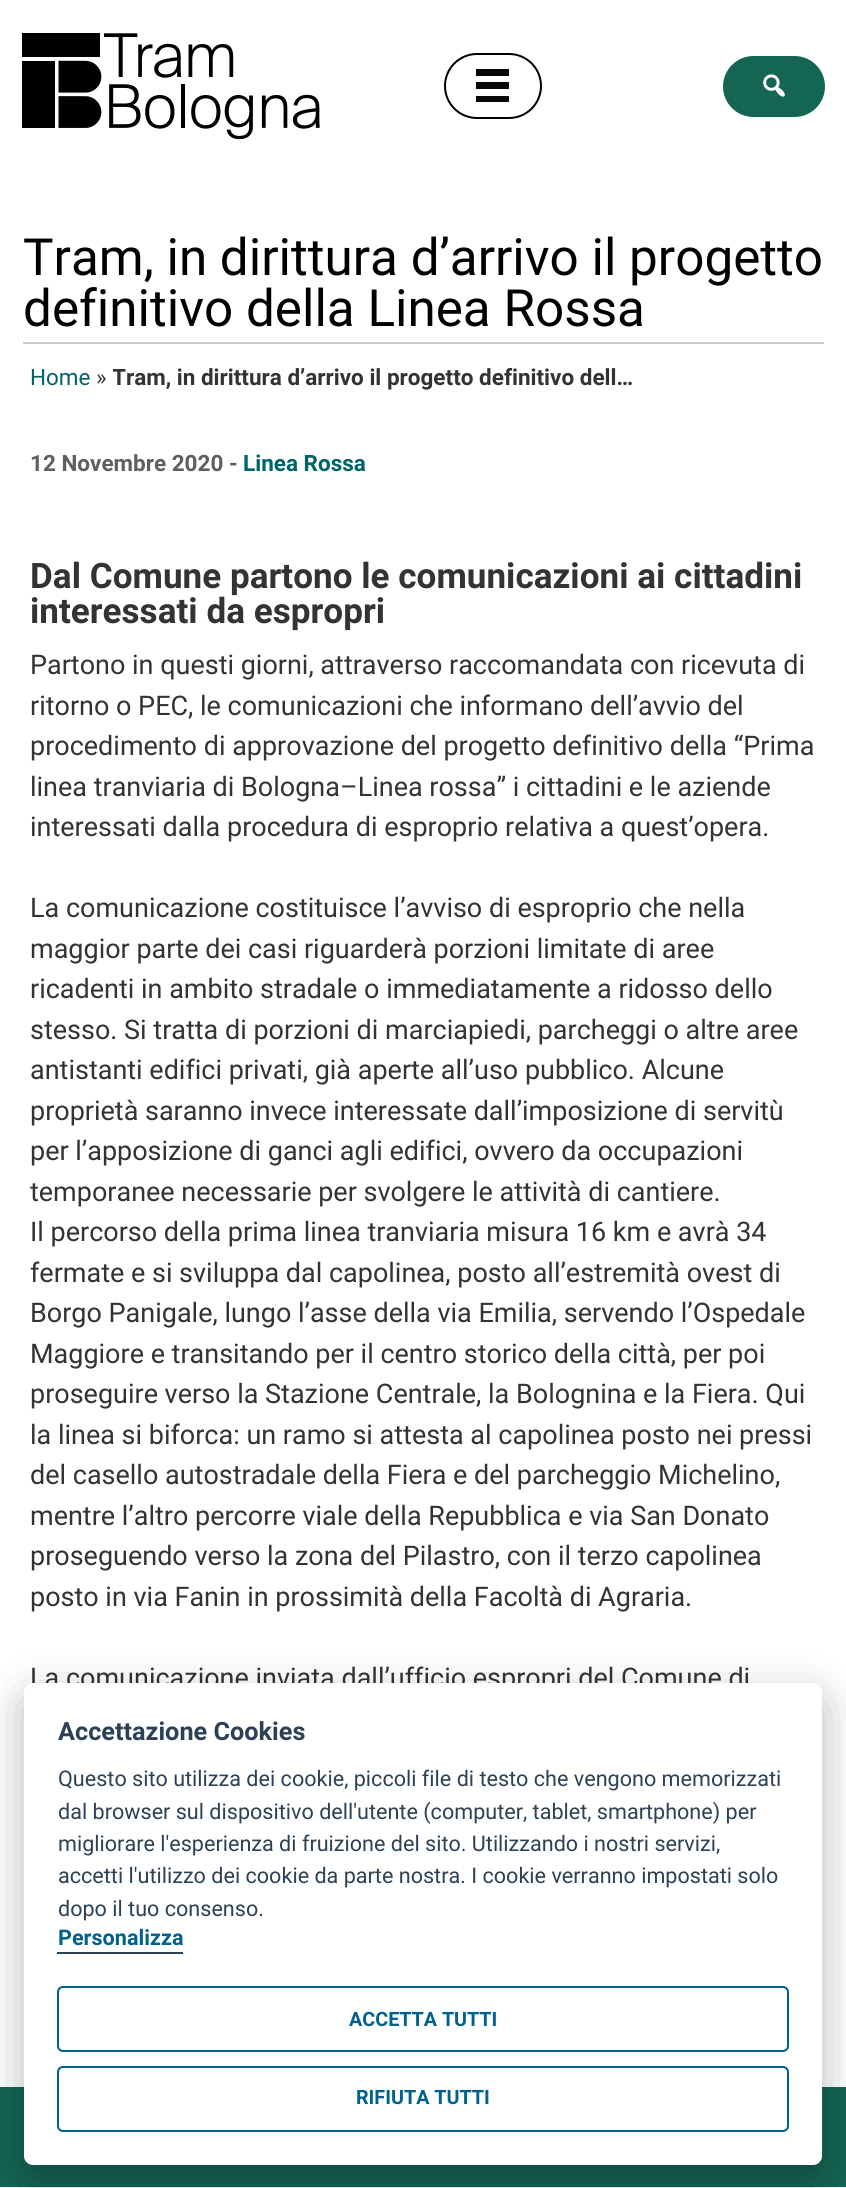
import math
import cairo

surface = cairo.ImageSurface(cairo.FORMAT_RGB24, 846, 2188)
c = cairo.Context(surface)
options = cairo.FontOptions()
options.set_hint_metrics(cairo.HINT_METRICS_OFF)
options.set_hint_style(cairo.HINT_STYLE_NONE)
c.set_font_options(options)
c.set_miter_limit(4)
def C(code):
 c.set_source_rgb(*(v / 255 for v in bytes.fromhex(code[-6:])))
def F(family, size, italic, bold):
 c.select_font_face(family, cairo.FONT_SLANT_ITALIC if italic else cairo.FONT_SLANT_NORMAL, cairo.FONT_WEIGHT_BOLD if bold else cairo.FONT_WEIGHT_NORMAL)
 c.set_font_size(size)
def T(x, y, s):
 c.move_to(x, y)
 c.show_text(s)
def R(x, y, w, h):
 c.rectangle(x, y, w, h)
 c.fill()
def Q(x, y, w, h, r):
 c.new_sub_path()
 for i, (u, v) in enumerate([(x + w - r, y + h - r), (x + r, y + h - r), (x + r, y + r), (x + w - r, y + r)]):
  c.arc(u, v, r, i * math.pi / 2, (i + 1) * math.pi / 2)
 c.close_path()
def S(x, y, w, h, r, blur, alpha):
 c.push_group_with_content(cairo.CONTENT_ALPHA)
 c.set_operator(cairo.OPERATOR_SOURCE)
 for i in range(15, -16, -2):
  e = blur * i / 6
  if min(w, h) + 2 * e > 0:
   c.set_source_rgba(0, 0, 0, alpha * math.erfc((i - 1) / 8.5) / 2)
   Q(x - e, y - e, w + 2 * e, h + 2 * e, max(0, min(r + e + blur * .6, min(w, h) / 2 + e)))
   c.fill()
 c.mask(c.pop_group())
def I(path, x, y, w, h):
 c.save()
 c.set_source_surface(cairo.ImageSurface.create_from_png(path), x, y)
 c.rectangle(x, y, w, h)
 c.fill()
 c.restore()
C('ffffff')
c.paint()
I('1.png',22,33,298,107)
Q(445,54,96,64,32)
C('000000')
c.stroke()
C('070707')
R(476,69,33,7)
R(476,82,33,7)
R(476,96,33,6)
C('156553')
Q(723,56,102,61,30.5)
c.fill()
I('2.png',763,74,22,23)
F('Roboto',51.25,0,0)
C('000000')
T(23,275,'Tram, in dirittura d’arrivo il progetto')
T(23,326,'definitivo della Linea Rossa')
C('cccccc')
R(23,342,801,2)
F('Roboto',22.5,0,0)
C('00636a')
T(30,385,'Home')
C('333333')
T(96,385,'»')
c.save()
c.rectangle(113,359,525,40)
c.clip()
F('Roboto',22.5,0,1)
T(112,385,'Tram, in dirittura d’arrivo il progetto definitivo dell…')
c.restore()
F('Roboto',22.5,0,1)
C('5f5f5f')
T(30,471,'12 Novembre 2020 -')
C('00636a')
T(243,471,'Linea Rossa')
F('Roboto',35.1,0,1)
C('333333')
T(30,588,'Dal Comune partono le comunicazioni ai cittadini')
T(30,623,'interessati da espropri')
F('Roboto',27,0,0)
T(30,674,'Partono in questi giorni, attraverso raccomandata con ricevuta di')
T(30,715,'ritorno o PEC, le comunicazioni che informano dell’avvio del')
T(30,755,'procedimento di approvazione del progetto definitivo della “Prima')
T(30,796,'linea tranviaria di Bologna–Linea rossa” i cittadini e le aziende')
T(30,836,'interessati dalla procedura di esproprio relativa a quest’opera.')
T(30,917,'La comunicazione costituisce l’avviso di esproprio che nella')
T(30,958,'maggior parte dei casi riguarderà porzioni limitate di aree')
T(30,998,'ricadenti in ambito stradale o immediatamente a ridosso dello')
T(30,1039,'stesso. Si tratta di porzioni di marciapiedi, parcheggi o altre aree')
T(30,1079,'antistanti edifici privati, già aperte all’uso pubblico. Alcune')
T(30,1120,'proprietà saranno invece interessate dall’imposizione di servitù')
T(30,1160,'per l’apposizione di ganci agli edifici, ovvero da occupazioni')
T(30,1201,'temporanee necessarie per svolgere le attività di cantiere.')
T(30,1241,'Il percorso della prima linea tranviaria misura 16 km e avrà 34')
T(30,1282,'fermate e si sviluppa dal capolinea, posto all’estremità ovest di')
T(30,1322,'Borgo Panigale, lungo l’asse della via Emilia, servendo l’Ospedale')
T(30,1363,'Maggiore e transitando per il centro storico della città, per poi')
T(30,1403,'proseguire verso la Stazione Centrale, la Bolognina e la Fiera. Qui')
T(30,1444,'la linea si biforca: un ramo si attesta al capolinea posto nei pressi')
T(30,1484,'del casello autostradale della Fiera e del parcheggio Michelino,')
T(30,1525,'mentre l’altro percorre viale della Repubblica e via San Donato')
T(30,1565,'proseguendo verso la zona del Pilastro, con il terzo capolinea')
T(30,1606,'posto in via Fanin in prossimità della Facoltà di Agraria.')
T(30,1687,'La comunicazione inviata dall’ufficio espropri del Comune di')
C('156553')
R(0,2087,846,100)
C('020203')
S(24,1698,798,482,9,22.5,.28)
C('ffffff')
Q(24,1683,798,482,9)
c.fill()
F('Roboto',25.25,0,1)
C('2d4156')
T(58,1740,'Accettazione Cookies')
F('Roboto',21.6,0,0)
T(58,1786,'Questo sito utilizza dei cookie, piccoli file di testo che vengono memorizzati')
T(58,1819,'dal browser sul dispositivo dell\'utente (computer, tablet, smartphone) per')
T(58,1851,'migliorare l\'esperienza di fruizione del sito. Utilizzando i nostri servizi,')
T(58,1883,'accetti l\'utilizzo dei cookie da parte nostra. I cookie verranno impostati solo')
T(58,1916,'dopo il tuo consenso.')
R(57,1952,126,2)
F('Roboto',21.6,0,1)
C('00618b')
T(58,1945,'Personalizza')
Q(58,1987,730,64,5)
c.stroke()
F('Roboto',19.75,0,1)
T(349,2026,'ACCETTA TUTTI')
Q(58,2067,730,64,5)
c.stroke()
T(356,2104,'RIFIUTA TUTTI')
surface.write_to_png('o.png')
